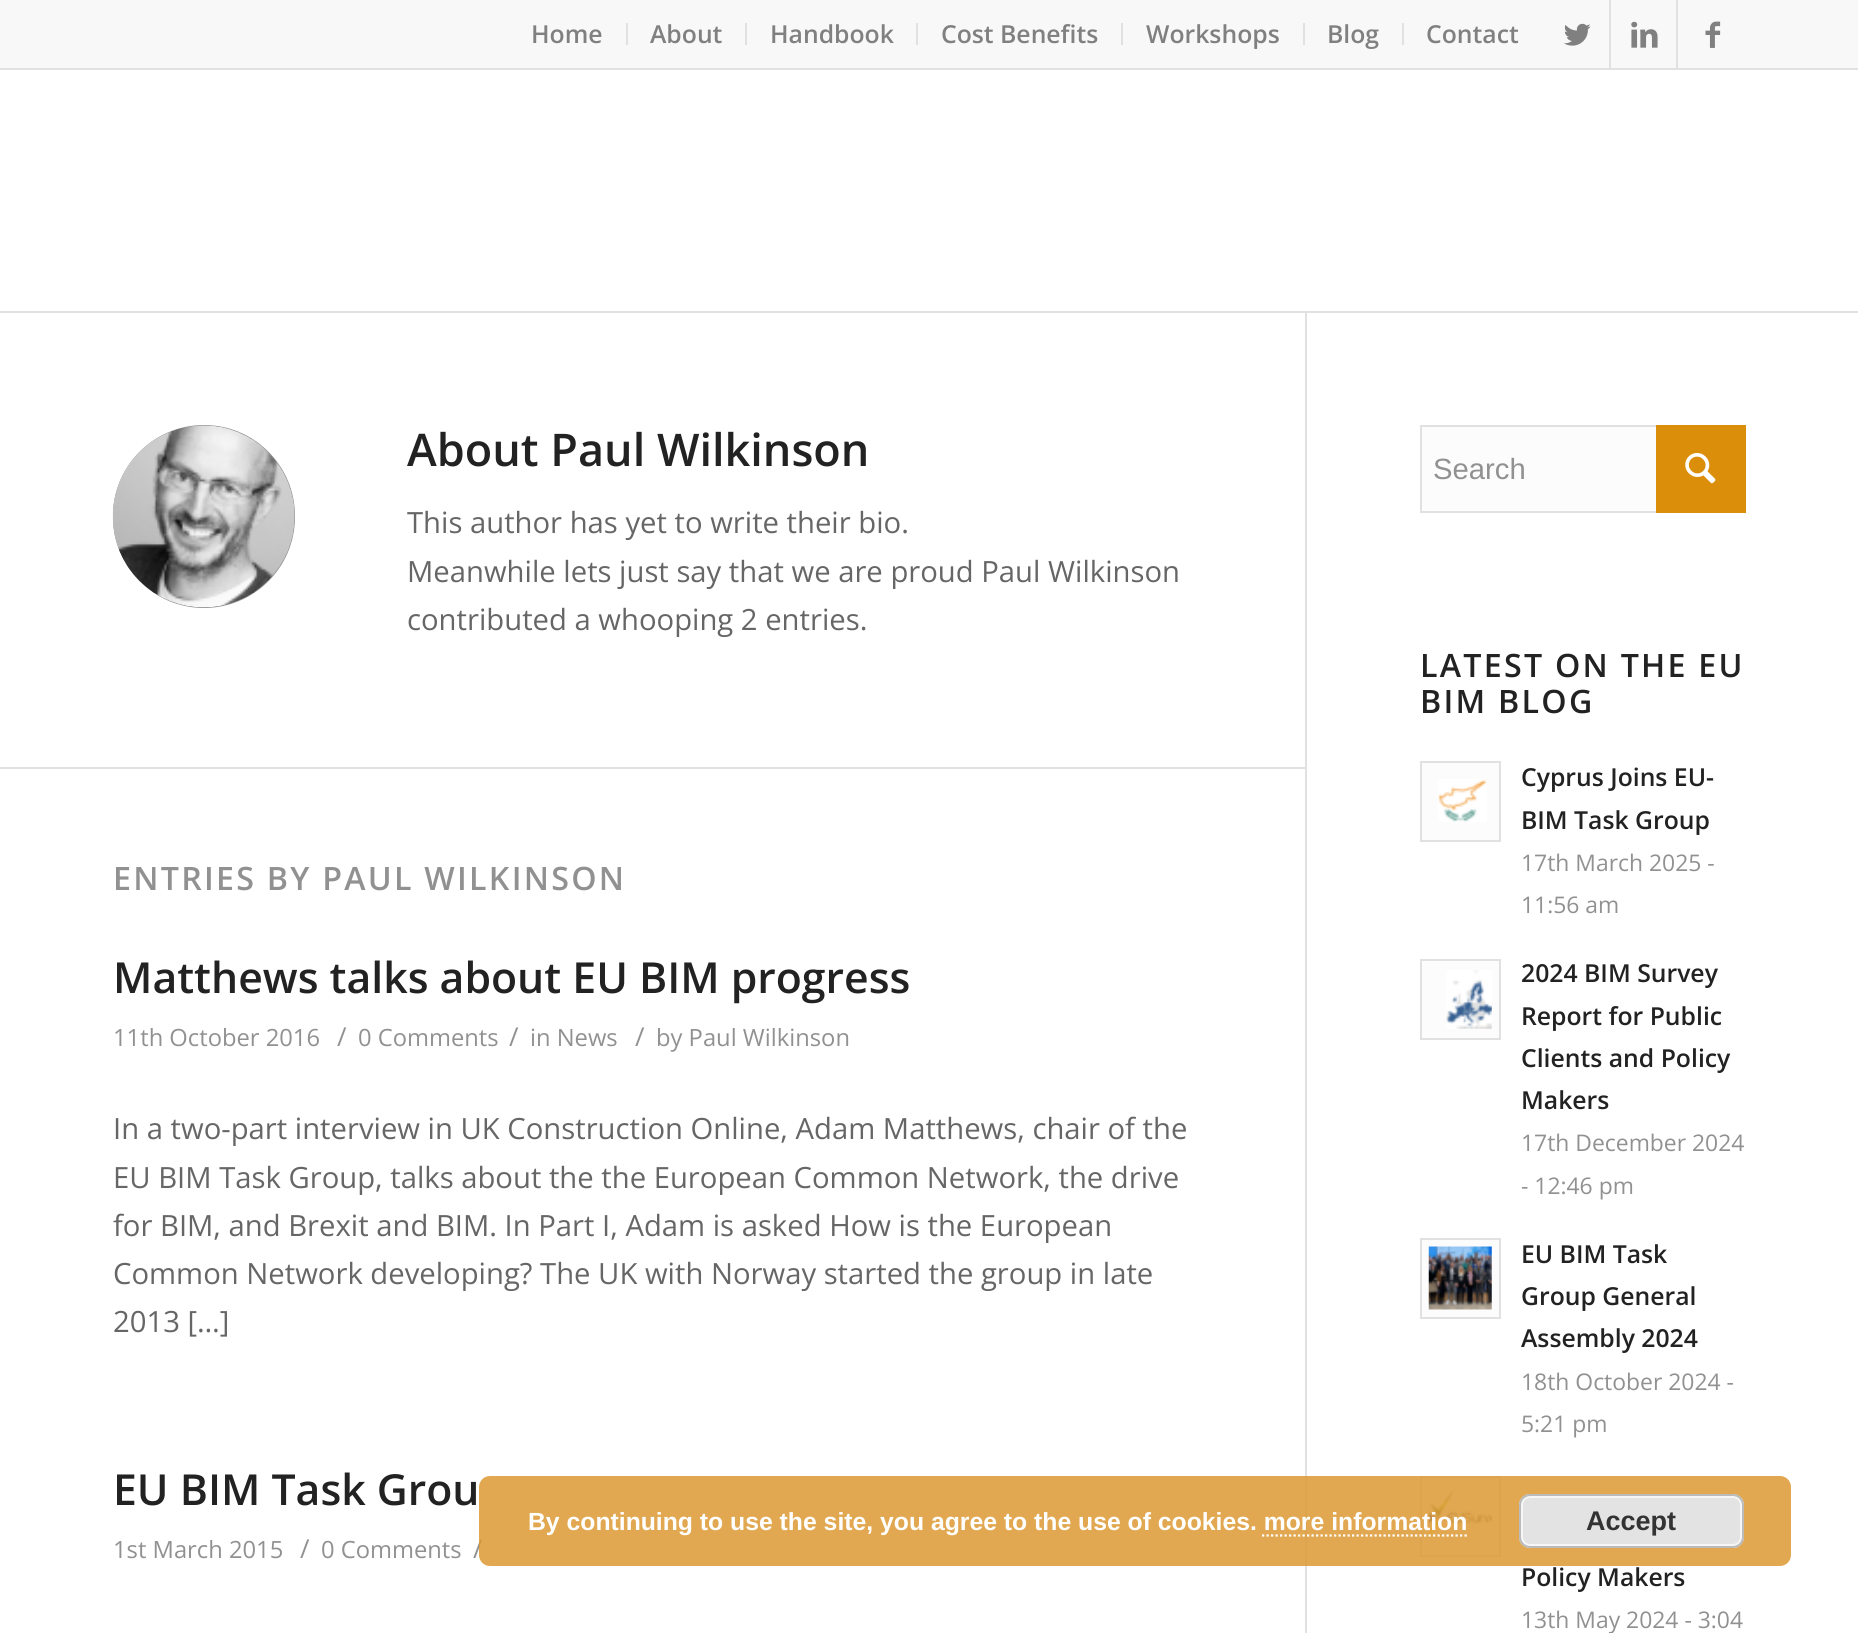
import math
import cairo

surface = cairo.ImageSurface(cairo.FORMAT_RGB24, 1858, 1633)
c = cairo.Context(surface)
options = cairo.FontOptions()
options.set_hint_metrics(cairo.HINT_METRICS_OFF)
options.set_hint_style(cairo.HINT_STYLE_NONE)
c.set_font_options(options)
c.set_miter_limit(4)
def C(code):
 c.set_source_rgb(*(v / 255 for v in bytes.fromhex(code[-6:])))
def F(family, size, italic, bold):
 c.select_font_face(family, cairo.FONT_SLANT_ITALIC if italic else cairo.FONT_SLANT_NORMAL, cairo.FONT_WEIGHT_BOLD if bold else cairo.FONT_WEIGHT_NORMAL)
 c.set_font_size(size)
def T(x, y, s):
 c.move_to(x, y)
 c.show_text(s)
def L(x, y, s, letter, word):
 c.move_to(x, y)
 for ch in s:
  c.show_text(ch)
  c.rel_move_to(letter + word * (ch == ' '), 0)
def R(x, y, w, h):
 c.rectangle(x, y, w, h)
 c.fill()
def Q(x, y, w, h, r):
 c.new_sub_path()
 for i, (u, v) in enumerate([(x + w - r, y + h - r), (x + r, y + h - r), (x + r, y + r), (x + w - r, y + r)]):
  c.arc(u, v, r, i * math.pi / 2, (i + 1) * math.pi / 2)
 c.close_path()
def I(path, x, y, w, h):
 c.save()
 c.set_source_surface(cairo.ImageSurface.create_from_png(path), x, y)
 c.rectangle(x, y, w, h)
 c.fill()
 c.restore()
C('ffffff')
c.paint()
C('f8f8f8')
R(0,0,1858,68)
C('e1e1e1')
R(0,68,1858,2)
R(626,23,2,22)
F('Open Sans SemiBold',24.75,0,0)
C('808080')
T(531,43,'Home')
C('e1e1e1')
R(745,23,2,22)
C('808080')
T(650,43,'About')
C('e1e1e1')
R(916,23,2,22)
C('808080')
T(770,43,'Handbook')
C('e1e1e1')
R(1121,23,2,22)
C('808080')
T(941,43,'Cost Benefits')
C('e1e1e1')
R(1303,23,2,22)
C('808080')
T(1146,43,'Workshops')
C('e1e1e1')
R(1402,23,2,22)
C('808080')
T(1327,43,'Blog')
T(1426,43,'Contact')
C('e1e1e1')
R(1609,0,2,68)
I('1.png',1564,23,27,23)
R(1676,0,2,68)
I('2.png',1631,21,27,27)
I('3.png',1705,21,16,27)
R(0,311,1858,2)
R(1305,313,2,1320)
C('919191')
Q(113,425,182,183,91)
c.fill()
I('4.png',112,425,183,183)
F('Open Sans SemiBold',45,0,0)
C('222222')
T(407,466,'About Paul Wilkinson')
F('Open Sans',29.25,0,0)
C('666666')
T(407,533,'This author has yet to write their bio.')
T(407,582,'Meanwhile lets just say that we are proud Paul Wilkinson')
T(407,630,'contributed a whooping 2 entries.')
C('e1e1e1')
R(0,767,1305,2)
F('Open Sans SemiBold',32.2,0,0)
C('919191')
L(113,890,'ENTRIES BY PAUL WILKINSON',2.25,0)
F('Open Sans SemiBold',42.75,0,0)
C('222222')
T(113,993,'Matthews talks about EU BIM progress')
F('Open Sans',23.75,0,0)
C('919191')
T(113,1046,'11th October 2016')
F('Open Sans',26,0,0)
T(337,1046,'/')
F('Open Sans',23.75,0,0)
T(358,1046,'0 Comments')
F('Open Sans',26,0,0)
T(509,1046,'/')
F('Open Sans',23.75,0,0)
T(530,1046,'in News')
F('Open Sans',26,0,0)
T(635,1046,'/')
F('Open Sans',23.75,0,0)
T(656,1046,'by Paul Wilkinson')
F('Open Sans',29.25,0,0)
C('666666')
T(113,1139,'In a two-part interview in UK Construction Online, Adam Matthews, chair of the')
T(113,1188,'EU BIM Task Group, talks about the the European Common Network, the drive')
T(113,1236,'for BIM, and Brexit and BIM. In Part I, Adam is asked How is the European')
T(113,1284,'Common Network developing? The UK with Norway started the group in late')
T(113,1332,'2013 […]')
F('Open Sans SemiBold',42.75,0,0)
C('222222')
T(113,1505,'EU BIM Task Grou')
F('Open Sans',23.75,0,0)
C('919191')
T(113,1558,'1st March 2015')
F('Open Sans',26,0,0)
T(300,1558,'/')
F('Open Sans',23.75,0,0)
T(321,1558,'0 Comments')
F('Open Sans',26,0,0)
T(473,1558,'/')
C('fcfcfc')
R(1422,427,234,84)
c.rectangle(1421,426,324,86)
C('e1e1e1')
c.stroke()
F('Liberation Sans',29.25,0,0)
C('919191')
T(1433,479,'Search')
C('db8e0a')
R(1656,425,90,88)
I('5.png',1685,453,31,31)
F('Open Sans SemiBold',32.2,0,0)
C('222222')
L(1420,677,'LATEST ON THE EU',2.25,0)
L(1420,713,'BIM BLOG',2.25,0)
C('fcfcfc')
c.rectangle(1421,762,79,79)
c.fill_preserve()
C('e1e1e1')
c.stroke()
I('6.png',1438,779,49,43)
F('Open Sans SemiBold',24.75,0,0)
C('222222')
T(1521,786,'Cyprus Joins EU-')
T(1521,829,'BIM Task Group')
F('Open Sans',22.9,0,0)
C('919191')
T(1521,871,'17th March 2025 -')
T(1521,913,'11:56 am')
C('fcfcfc')
c.rectangle(1421,960,79,79)
c.fill_preserve()
C('e1e1e1')
c.stroke()
I('7.png',1446,970,46,59)
F('Open Sans SemiBold',24.75,0,0)
C('222222')
T(1521,982,'2024 BIM Survey')
T(1521,1025,'Report for Public')
T(1521,1067,'Clients and Policy')
T(1521,1109,'Makers')
F('Open Sans',22.9,0,0)
C('919191')
T(1521,1151,'17th December 2024')
T(1521,1194,'- 12:46 pm')
C('fcfcfc')
c.rectangle(1421,1239,79,79)
c.fill_preserve()
C('e1e1e1')
c.stroke()
I('8.png',1428,1246,64,64)
F('Open Sans SemiBold',24.75,0,0)
C('222222')
T(1521,1263,'EU BIM Task')
T(1521,1305,'Group General')
T(1521,1347,'Assembly 2024')
F('Open Sans',22.9,0,0)
C('919191')
T(1521,1390,'18th October 2024 -')
T(1521,1432,'5:21 pm')
C('fcfcfc')
c.rectangle(1421,1477,79,79)
c.fill_preserve()
C('e1e1e1')
c.stroke()
I('9.png',1428,1490,64,48)
F('Open Sans SemiBold',24.75,0,0)
C('222222')
T(1521,1586,'Policy Makers')
F('Open Sans',22.9,0,0)
C('919191')
T(1521,1628,'13th May 2024 - 3:04')
c.set_source_rgba(0.867,0.6,0.2,0.85)
Q(479,1476,1312,90,11)
c.fill()
F('Liberation Sans',24.75,0,1)
C('ffffff')
T(528,1530,'By continuing to use the site, you agree to the use of cookies. more information')
C('e3e3e3')
Q(1519,1494,225,54,11)
c.fill()
Q(1522,1497,219,48,8)
C('f6f6f6')
c.stroke()
Q(1520,1495,223,52,10)
C('bbbbbb')
c.stroke()
F('Liberation Sans',27,0,1)
C('333333')
T(1586,1530,'Accept')
c.new_path()
c.move_to(1262,1535.5)
c.line_to(1467,1535.5)
C('ffffff')
c.set_line_width(2.2)
c.set_dash([2.25,2.25])
c.stroke()
surface.write_to_png('o.png')
